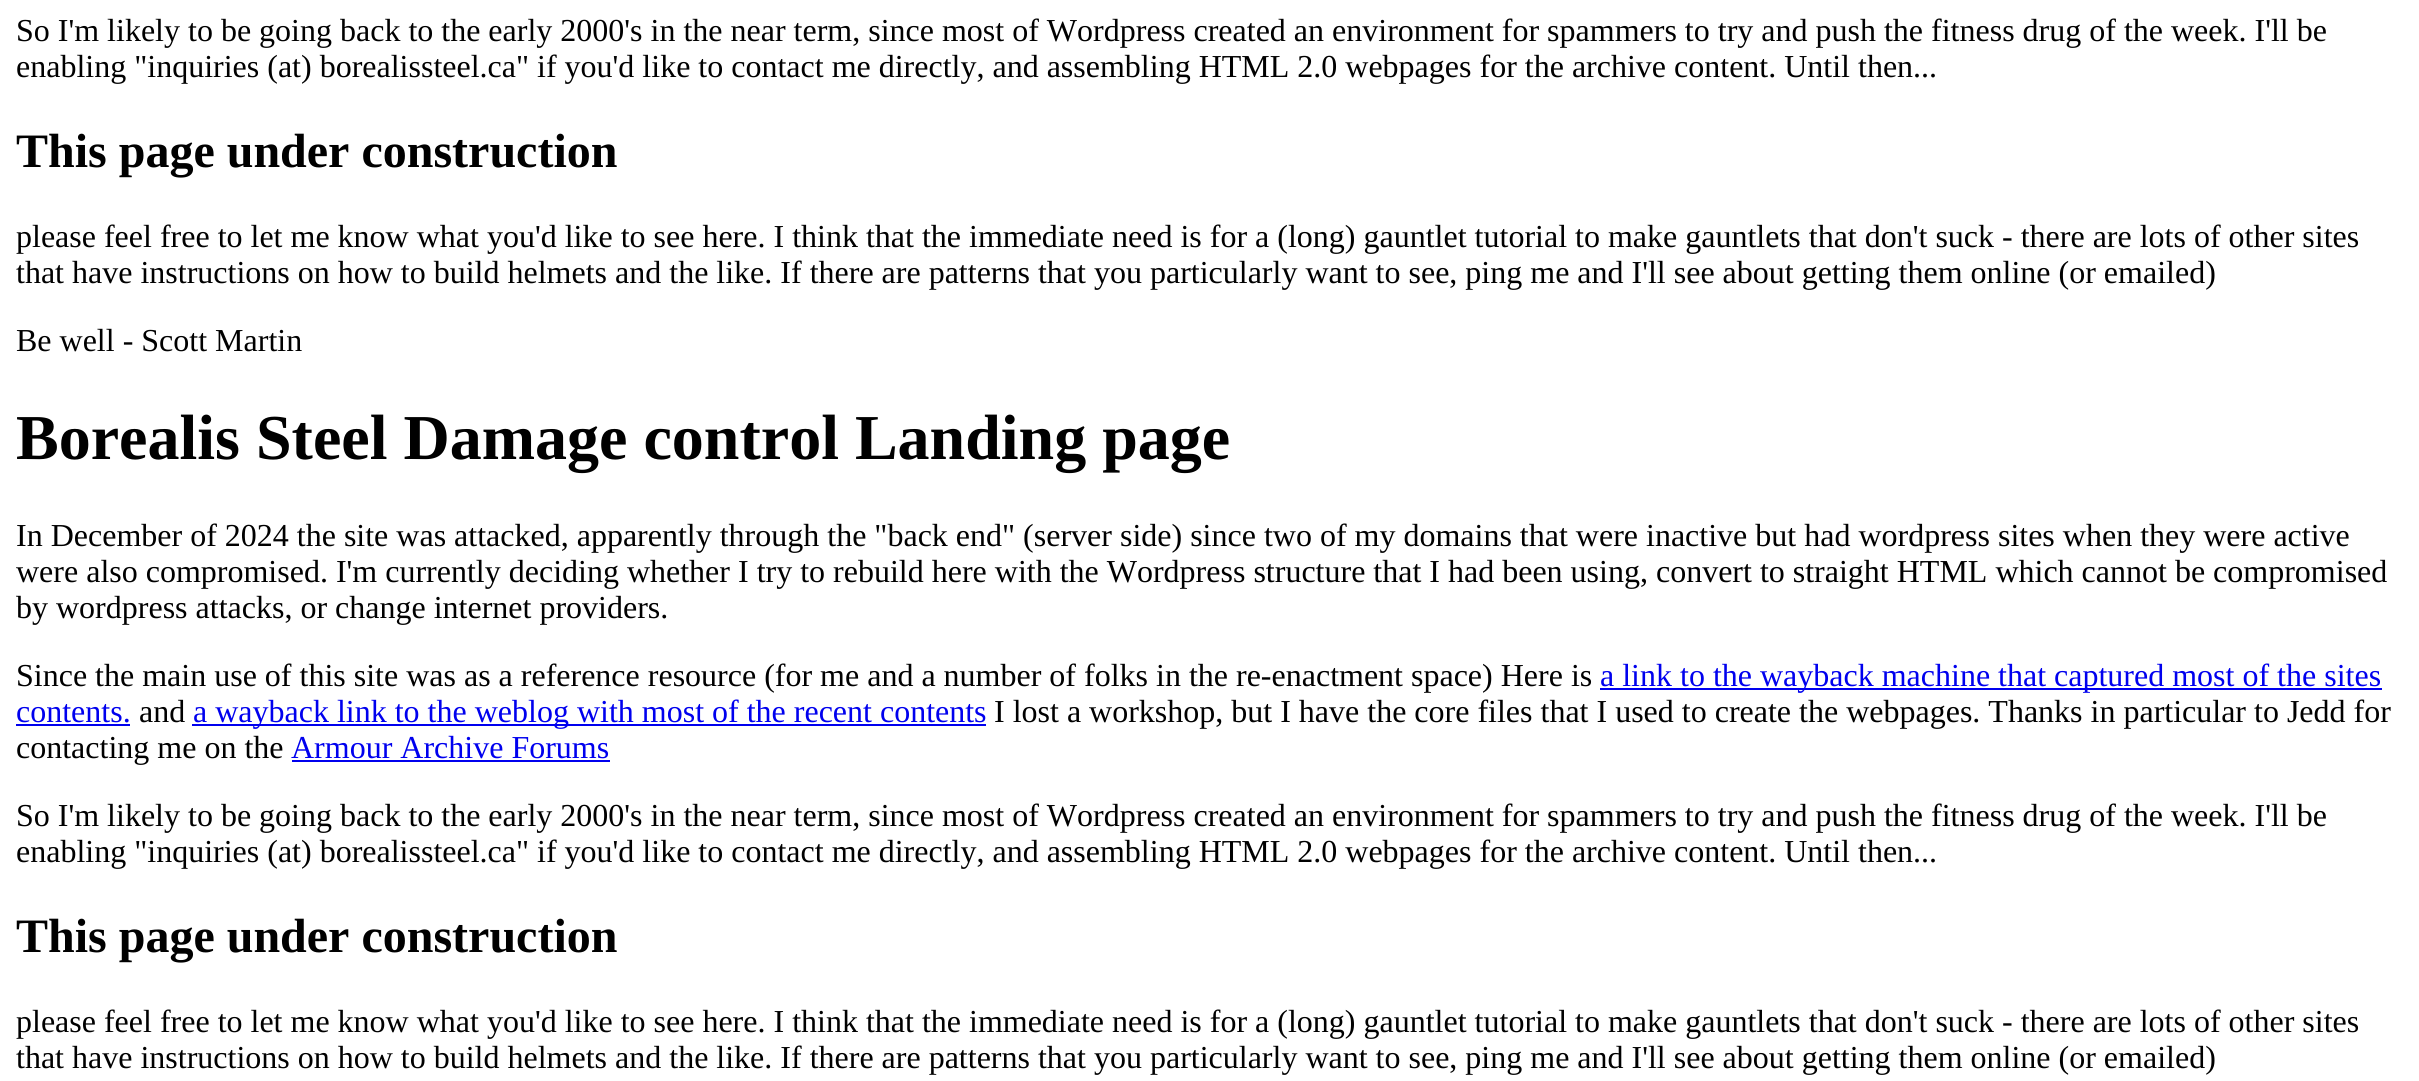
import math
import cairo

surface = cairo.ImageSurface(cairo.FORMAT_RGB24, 2419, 1081)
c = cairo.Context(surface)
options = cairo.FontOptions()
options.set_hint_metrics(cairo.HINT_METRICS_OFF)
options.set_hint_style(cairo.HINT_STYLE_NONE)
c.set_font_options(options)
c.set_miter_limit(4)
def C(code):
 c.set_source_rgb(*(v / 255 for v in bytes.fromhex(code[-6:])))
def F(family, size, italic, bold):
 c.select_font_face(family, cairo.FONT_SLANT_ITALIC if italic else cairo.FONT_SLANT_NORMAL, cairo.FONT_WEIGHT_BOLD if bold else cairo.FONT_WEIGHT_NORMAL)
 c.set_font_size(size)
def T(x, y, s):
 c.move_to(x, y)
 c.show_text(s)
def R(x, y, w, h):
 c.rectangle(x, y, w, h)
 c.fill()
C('ffffff')
c.paint()
F('Liberation Serif',32,0,0)
C('000000')
T(16,41,'So I\'m likely to be going back to the early 2000\'s in the near term, since most of Wordpress created an environment for spammers to try and push the fitness drug of the week. I\'ll be')
T(16,77,'enabling "inquiries (at) borealissteel.ca" if you\'d like to contact me directly, and assembling HTML 2.0 webpages for the archive content. Until then...')
F('Liberation Serif',48,0,1)
T(16,167,'This page under construction')
F('Liberation Serif',32,0,0)
T(16,247,'please feel free to let me know what you\'d like to see here. I think that the immediate need is for a (long) gauntlet tutorial to make gauntlets that don\'t suck - there are lots of other sites')
T(16,283,'that have instructions on how to build helmets and the like. If there are patterns that you particularly want to see, ping me and I\'ll see about getting them online (or emailed)')
T(16,351,'Be well - Scott Martin')
F('Liberation Serif',64,0,1)
T(16,459,'Borealis Steel Damage control Landing page')
F('Liberation Serif',32,0,0)
T(16,546,'In December of 2024 the site was attacked, apparently through the "back end" (server side) since two of my domains that were inactive but had wordpress sites when they were active')
T(16,582,'were also compromised. I\'m currently deciding whether I try to rebuild here with the Wordpress structure that I had been using, convert to straight HTML which cannot be compromised')
T(16,618,'by wordpress attacks, or change internet providers.')
T(16,686,'Since the main use of this site was as a reference resource (for me and a number of folks in the re-enactment space) Here is')
C('0000ee')
R(1600,688,782,2)
T(1600,686,'a link to the wayback machine that captured most of the sites')
T(16,722,'contents.')
R(16,724,114,2)
C('000000')
T(139,722,'and')
C('0000ee')
R(192,724,794,2)
T(193,722,'a wayback link to the weblog with most of the recent contents')
C('000000')
T(994,722,'I lost a workshop, but I have the core files that I used to create the webpages. Thanks in particular to Jedd for')
T(16,758,'contacting me on the')
C('0000ee')
T(291,758,'Armour Archive Forums')
R(292,760,318,2)
C('000000')
T(16,826,'So I\'m likely to be going back to the early 2000\'s in the near term, since most of Wordpress created an environment for spammers to try and push the fitness drug of the week. I\'ll be')
T(16,862,'enabling "inquiries (at) borealissteel.ca" if you\'d like to contact me directly, and assembling HTML 2.0 webpages for the archive content. Until then...')
F('Liberation Serif',48,0,1)
T(16,952,'This page under construction')
F('Liberation Serif',32,0,0)
T(16,1032,'please feel free to let me know what you\'d like to see here. I think that the immediate need is for a (long) gauntlet tutorial to make gauntlets that don\'t suck - there are lots of other sites')
T(16,1068,'that have instructions on how to build helmets and the like. If there are patterns that you particularly want to see, ping me and I\'ll see about getting them online (or emailed)')
surface.write_to_png('o.png')
